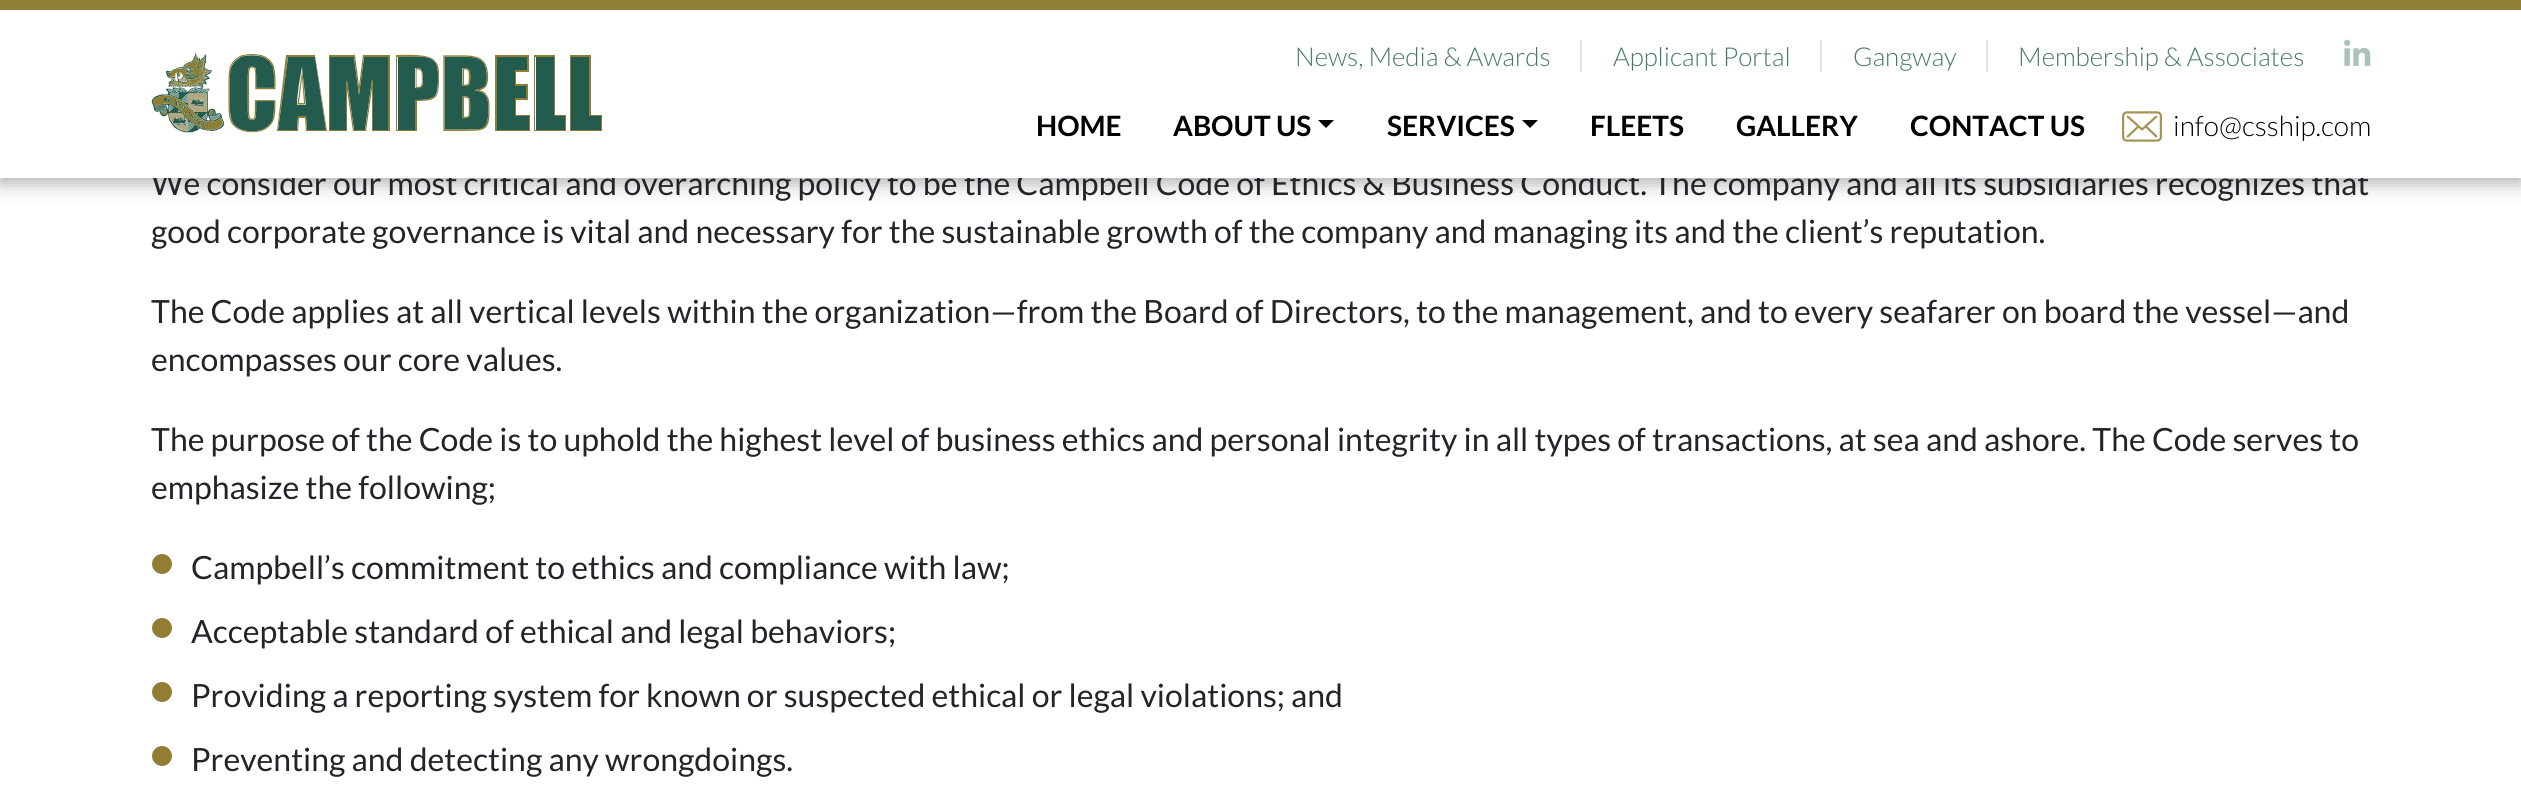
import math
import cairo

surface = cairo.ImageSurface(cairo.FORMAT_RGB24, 2521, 796)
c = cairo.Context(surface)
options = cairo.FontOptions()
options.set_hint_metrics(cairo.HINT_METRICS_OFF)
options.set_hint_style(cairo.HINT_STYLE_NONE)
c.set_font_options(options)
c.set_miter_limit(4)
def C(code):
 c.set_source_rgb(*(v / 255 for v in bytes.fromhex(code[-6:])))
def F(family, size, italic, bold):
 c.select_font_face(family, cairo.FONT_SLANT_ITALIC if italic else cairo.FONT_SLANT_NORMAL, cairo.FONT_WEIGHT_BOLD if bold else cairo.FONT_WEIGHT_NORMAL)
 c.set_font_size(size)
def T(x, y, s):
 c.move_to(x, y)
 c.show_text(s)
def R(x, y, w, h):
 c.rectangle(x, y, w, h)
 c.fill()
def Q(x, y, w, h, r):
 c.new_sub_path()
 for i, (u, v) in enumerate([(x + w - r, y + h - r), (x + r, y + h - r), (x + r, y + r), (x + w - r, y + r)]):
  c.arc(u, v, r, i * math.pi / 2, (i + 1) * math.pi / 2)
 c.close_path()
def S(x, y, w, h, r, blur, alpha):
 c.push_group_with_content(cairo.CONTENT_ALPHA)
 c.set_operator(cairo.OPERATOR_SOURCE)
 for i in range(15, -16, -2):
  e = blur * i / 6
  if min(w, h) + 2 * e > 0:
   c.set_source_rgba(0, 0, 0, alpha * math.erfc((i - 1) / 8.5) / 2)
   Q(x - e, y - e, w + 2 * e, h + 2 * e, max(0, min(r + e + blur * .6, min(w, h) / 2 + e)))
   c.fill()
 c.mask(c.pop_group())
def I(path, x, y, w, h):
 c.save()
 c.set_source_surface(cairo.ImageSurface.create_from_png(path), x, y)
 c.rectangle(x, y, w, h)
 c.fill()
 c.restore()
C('ffffff')
c.paint()
C('000000')
S(0,4,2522,178,0,10,.35)
F('Lato',32,0,0)
C('212529')
T(151,195,'We consider our most critical and overarching policy to be the Campbell Code of Ethics & Business Conduct. The company and all its subsidiaries recognizes that')
C('ffffff')
R(0,10,2521,168)
C('8f7e33')
R(0,0,2521,10)
F('Lato Light',26,0,0)
C('48786d')
T(1295,66,'News, Media & Awards')
T(1613,66,'Applicant Portal')
C('e1e5e4')
R(1580,40,2,32)
C('48786d')
T(1853,66,'Gangway')
C('e1e5e4')
R(1820,40,2,32)
C('48786d')
T(2018,66,'Membership & Associates')
C('e1e5e4')
R(1986,40,2,32)
I('1.png',2344,39,27,27)
I('36.png',151,87,74,46)
I('2.png',166,53,46,35)
I('5.png',229,55,46,77)
I('3.png',228,54,48,79)
C('235b4e')
c.new_path()
c.move_to(434,61)
c.curve_to(429,54,403,57,398,57)
c.line_to(398,130)
c.line_to(416,130)
c.line_to(416,100)
c.curve_to(437,100,438,97,438,76)
c.curve_to(438,72,438,64,434,61)
c.close_path()
c.move_to(423,81)
c.curve_to(423,87,421,88,415,88)
c.line_to(415,68)
c.curve_to(417,68,419,68,421,69)
c.curve_to(423,73,423,77,423,81)
c.close_path()
c.fill()
C('8d7e35')
c.new_path()
c.move_to(435,61)
c.curve_to(430,53,402,55,396,55)
c.line_to(396,131)
c.line_to(417,131)
c.line_to(417,101)
c.curve_to(438,101,439,97,439,77)
c.curve_to(439,71,439,65,435,61)
c.close_path()
c.move_to(438,83)
c.curve_to(438,90,438,96,431,98)
c.curve_to(426,100,421,100,415,100)
c.line_to(415,130)
c.line_to(397,130)
c.line_to(397,57)
c.curve_to(406,57,416,56,425,57)
c.line_to(432,59)
c.curve_to(439,64,438,77,438,83)
c.close_path()
c.fill()
I('7.png',167,56,43,31)
I('4.png',193,55,5,6)
C('235b4e')
c.new_path()
c.move_to(288,57)
c.line_to(278,130)
c.line_to(297,130)
c.line_to(298,116)
c.line_to(306,116)
c.line_to(307,130)
c.line_to(326,130)
c.line_to(315,57)
c.close_path()
c.move_to(297,105)
c.curve_to(297,93,300,78,302,67)
c.line_to(306,105)
c.close_path()
c.fill()
C('8d7e35')
c.new_path()
c.move_to(286,55)
c.line_to(277,131)
c.line_to(298,131)
c.line_to(299,118)
c.line_to(305,118)
c.line_to(306,131)
c.line_to(327,131)
c.line_to(315,55)
c.close_path()
c.move_to(307,130)
c.line_to(306,116)
c.line_to(298,116)
c.line_to(297,130)
c.line_to(278,130)
c.line_to(288,57)
c.line_to(315,57)
c.line_to(326,130)
c.close_path()
c.fill()
C('235b4e')
c.new_path()
c.move_to(356,72)
c.line_to(354,57)
c.line_to(330,57)
c.line_to(330,130)
c.line_to(346,130)
c.line_to(346,81)
c.line_to(347,81)
c.line_to(354,130)
c.line_to(365,130)
c.line_to(372,80)
c.line_to(373,80)
c.line_to(373,130)
c.line_to(388,130)
c.line_to(388,57)
c.line_to(364,57)
c.line_to(359,95)
c.close_path()
c.fill()
C('8d7e35')
c.new_path()
c.move_to(359,86)
c.line_to(355,55)
c.line_to(329,55)
c.line_to(329,131)
c.line_to(347,131)
c.line_to(347,90)
c.line_to(353,131)
c.line_to(366,131)
c.line_to(372,89)
c.line_to(372,131)
c.line_to(390,131)
c.line_to(390,55)
c.line_to(363,55)
c.close_path()
c.move_to(388,57)
c.line_to(388,130)
c.line_to(373,130)
c.line_to(373,80)
c.line_to(372,80)
c.line_to(365,130)
c.line_to(354,130)
c.line_to(347,81)
c.line_to(346,81)
c.line_to(346,130)
c.line_to(330,130)
c.line_to(330,57)
c.line_to(354,57)
c.line_to(359,95)
c.line_to(364,57)
c.close_path()
c.fill()
I('8.png',444,56,45,74)
I('6.png',443,55,47,76)
C('235b4e')
c.new_path()
c.move_to(515,98)
c.line_to(526,98)
c.line_to(526,86)
c.line_to(515,86)
c.line_to(515,70)
c.line_to(527,70)
c.line_to(527,57)
c.line_to(497,57)
c.line_to(497,130)
c.line_to(529,130)
c.line_to(529,116)
c.line_to(515,116)
c.close_path()
c.fill()
C('8d7e35')
c.new_path()
c.move_to(516,100)
c.line_to(528,100)
c.line_to(528,84)
c.line_to(516,84)
c.line_to(516,72)
c.line_to(529,72)
c.line_to(529,55)
c.line_to(495,55)
c.line_to(495,131)
c.line_to(530,131)
c.line_to(530,115)
c.line_to(516,115)
c.close_path()
c.move_to(529,116)
c.line_to(529,130)
c.line_to(497,130)
c.line_to(497,57)
c.line_to(527,57)
c.line_to(527,70)
c.line_to(515,70)
c.line_to(515,86)
c.line_to(526,86)
c.line_to(526,98)
c.line_to(515,98)
c.line_to(515,116)
c.close_path()
c.fill()
C('235b4e')
c.new_path()
c.move_to(554,57)
c.line_to(536,57)
c.line_to(536,130)
c.line_to(565,130)
c.line_to(565,116)
c.line_to(554,116)
c.close_path()
c.fill()
C('8d7e35')
c.new_path()
c.move_to(555,55)
c.line_to(534,55)
c.line_to(534,131)
c.line_to(566,131)
c.line_to(566,115)
c.line_to(555,115)
c.close_path()
c.move_to(565,116)
c.line_to(565,130)
c.line_to(535,130)
c.line_to(535,57)
c.line_to(554,57)
c.line_to(554,116)
c.close_path()
c.fill()
C('235b4e')
c.new_path()
c.move_to(589,57)
c.line_to(571,57)
c.line_to(571,130)
c.line_to(601,130)
c.line_to(601,116)
c.line_to(589,116)
c.close_path()
c.fill()
C('8d7e35')
c.new_path()
c.move_to(591,115)
c.line_to(591,55)
c.line_to(570,55)
c.line_to(570,131)
c.line_to(602,131)
c.line_to(602,115)
c.close_path()
c.move_to(601,130)
c.line_to(571,130)
c.line_to(571,57)
c.line_to(589,57)
c.line_to(589,116)
c.line_to(601,116)
c.close_path()
c.fill()
I('11.png',185,68,9,5)
I('9.png',184,66,9,3)
I('10.png',197,59,7,12)
c.new_path()
c.move_to(302.5,72.5)
c.line_to(302.5,67)
c.line_to(299.5,89)
c.line_to(297.5,104.5)
c.line_to(305.5,104.5)
c.close_path()
c.move_to(299,103)
c.line_to(302,78)
c.line_to(304,103)
c.close_path()
c.fill()
I('12.png',415,68,8,21)
I('13.png',462,68,9,19)
I('14.png',186,69,5,2)
I('15.png',187,69,3,2)
I('16.png',187,69,3,2)
c.set_source_rgba(0.137,0.357,0.306,0.68)
R(167,73,3,3)
I('17.png',175,73,3,9)
I('18.png',175,73,3,8)
I('27.png',178,78,9,3)
I('19.png',178,73,6,6)
I('22.png',182,77,2,2)
I('20.png',178,73,5,6)
I('23.png',186,73,13,7)
I('21.png',184,73,12,3)
I('24.png',182,77,2,2)
C('90a99e')
R(184,77,1,1)
C('ffffff')
c.new_path()
c.move_to(184.5,78)
c.curve_to(185.5,78,185,77.5,184,77.5)
c.close_path()
c.fill()
I('25.png',171,80,1,1)
I('26.png',172,78,3,2)
C('b2baa8')
R(172,80,1,1)
C('b2bfb3')
R(174,80,1,1)
I('28.png',184,80,2,2)
I('31.png',186,80,2,2)
I('33.png',182,81,3,2)
I('35.png',184,81,2,1)
I('29.png',185,80,3,2)
I('32.png',181,81,2,1)
I('30.png',180,81,2,1)
I('34.png',182,81,3,2)
I('38.png',174,88,8,5)
I('37.png',167,89,9,4)
I('39.png',180,88,6,5)
I('42.png',200,89,9,4)
I('41.png',194,88,8,5)
I('40.png',190,88,6,5)
I('43.png',169,93,10,5)
I('55.png',156,104,11,7)
C('b2a77e')
c.new_path()
c.move_to(175.5,117.5)
c.line_to(175.5,118)
c.line_to(176,118)
c.line_to(176,117.5)
c.close_path()
c.fill()
I('72.png',179,119,2,2)
c.new_path()
c.move_to(179.5,121)
c.line_to(180,121)
c.line_to(180,120.5)
c.line_to(179.5,120.5)
c.close_path()
c.move_to(180,119)
c.line_to(180,118)
c.line_to(179.5,119)
c.close_path()
c.fill()
c.set_source_rgba(0.698,0.655,0.494,0.63)
R(182,118,3,3)
I('73.png',181,119,1,1)
I('63.png',169,112,19,19)
I('70.png',209,114,11,7)
I('75.png',188,122,7,10)
I('46.png',153,95,70,35)
I('44.png',182,93,6,10)
I('49.png',191,98,14,7)
C('b2a77e')
c.new_path()
c.move_to(193,99.5)
c.line_to(193,100)
c.line_to(193.5,99.5)
c.close_path()
c.move_to(192.5,101)
c.line_to(192.5,100.5)
c.line_to(192,101.5)
c.close_path()
c.fill()
I('51.png',200,100,3,2)
I('52.png',196,101,2,2)
C('638574')
R(199,101,1,1)
I('53.png',202,100,1,2)
I('58.png',191,104,14,4)
C('7d9c91')
c.new_path()
c.move_to(179,112)
c.line_to(180.5,112)
c.line_to(178.5,110.5)
c.line_to(178.5,112)
c.close_path()
c.fill()
I('57.png',178,103,8,8)
I('61.png',184,109,7,6)
C('8d7e35')
R(186,111,3,3)
I('45.png',188,93,19,19)
I('47.png',462,96,9,23)
c.set_source_rgba(0.137,0.357,0.306,0.9)
R(164,98,3,3)
I('50.png',171,100,7,5)
I('48.png',167,98,6,4)
I('54.png',174,102,2,1)
I('56.png',169,105,5,7)
I('60.png',162,109,5,7)
I('59.png',160,109,4,4)
I('62.png',209,110,5,6)
I('64.png',189,113,5,6)
I('65.png',196,113,2,2)
I('66.png',202,113,5,7)
I('67.png',213,112,2,3)
I('68.png',173,116,14,8)
I('69.png',190,116,2,2)
C('8d7e35')
c.new_path()
c.move_to(192,115.5)
c.line_to(192.5,116.5)
c.line_to(193,116)
c.close_path()
c.fill()
I('71.png',193,118,6,5)
I('74.png',195,118,2,2)
I('76.png',197,120,5,6)
I('77.png',202,122,4,6)
I('78.png',207,125,2,1)
I('79.png',197,127,2,2)
F('Lato',28,0,1)
C('000000')
T(1036,136,'HOME')
T(1173,136,'ABOUT US')
c.new_path()
c.move_to(1318,120)
c.line_to(1334,120)
c.line_to(1326,128)
c.close_path()
c.fill()
T(1387,136,'SERVICES')
c.new_path()
c.move_to(1522,120)
c.line_to(1538,120)
c.line_to(1530,128)
c.close_path()
c.fill()
T(1590,136,'FLEETS')
T(1736,136,'GALLERY')
T(1910,136,'CONTACT US')
I('80.png',2122,111,40,31)
F('Lato Light',28,0,0)
T(2173,136,'info@csship.com')
F('Lato',32,0,0)
C('212529')
T(151,243,'good corporate governance is vital and necessary for the sustainable growth of the company and managing its and the client’s reputation.')
T(151,323,'The Code applies at all vertical levels within the organization—from the Board of Directors, to the management, and to every seafarer on board the vessel—and')
T(151,371,'encompasses our core values.')
T(151,451,'The purpose of the Code is to uphold the highest level of business ethics and personal integrity in all types of transactions, at sea and ashore. The Code serves to')
T(151,499,'emphasize the following;')
C('8f7e33')
c.new_path()
c.arc(162,564,10,0,2 * math.pi)
c.fill()
C('212529')
T(191,579,'Campbell’s commitment to ethics and compliance with law;')
C('8f7e33')
c.new_path()
c.arc(162,628,10,0,2 * math.pi)
c.fill()
C('212529')
T(191,643,'Acceptable standard of ethical and legal behaviors;')
C('8f7e33')
c.new_path()
c.arc(162,692,10,0,2 * math.pi)
c.fill()
C('212529')
T(191,707,'Providing a reporting system for known or suspected ethical or legal violations; and')
C('8f7e33')
c.new_path()
c.arc(162,756,10,0,2 * math.pi)
c.fill()
C('212529')
T(191,771,'Preventing and detecting any wrongdoings.')
surface.write_to_png('o.png')
